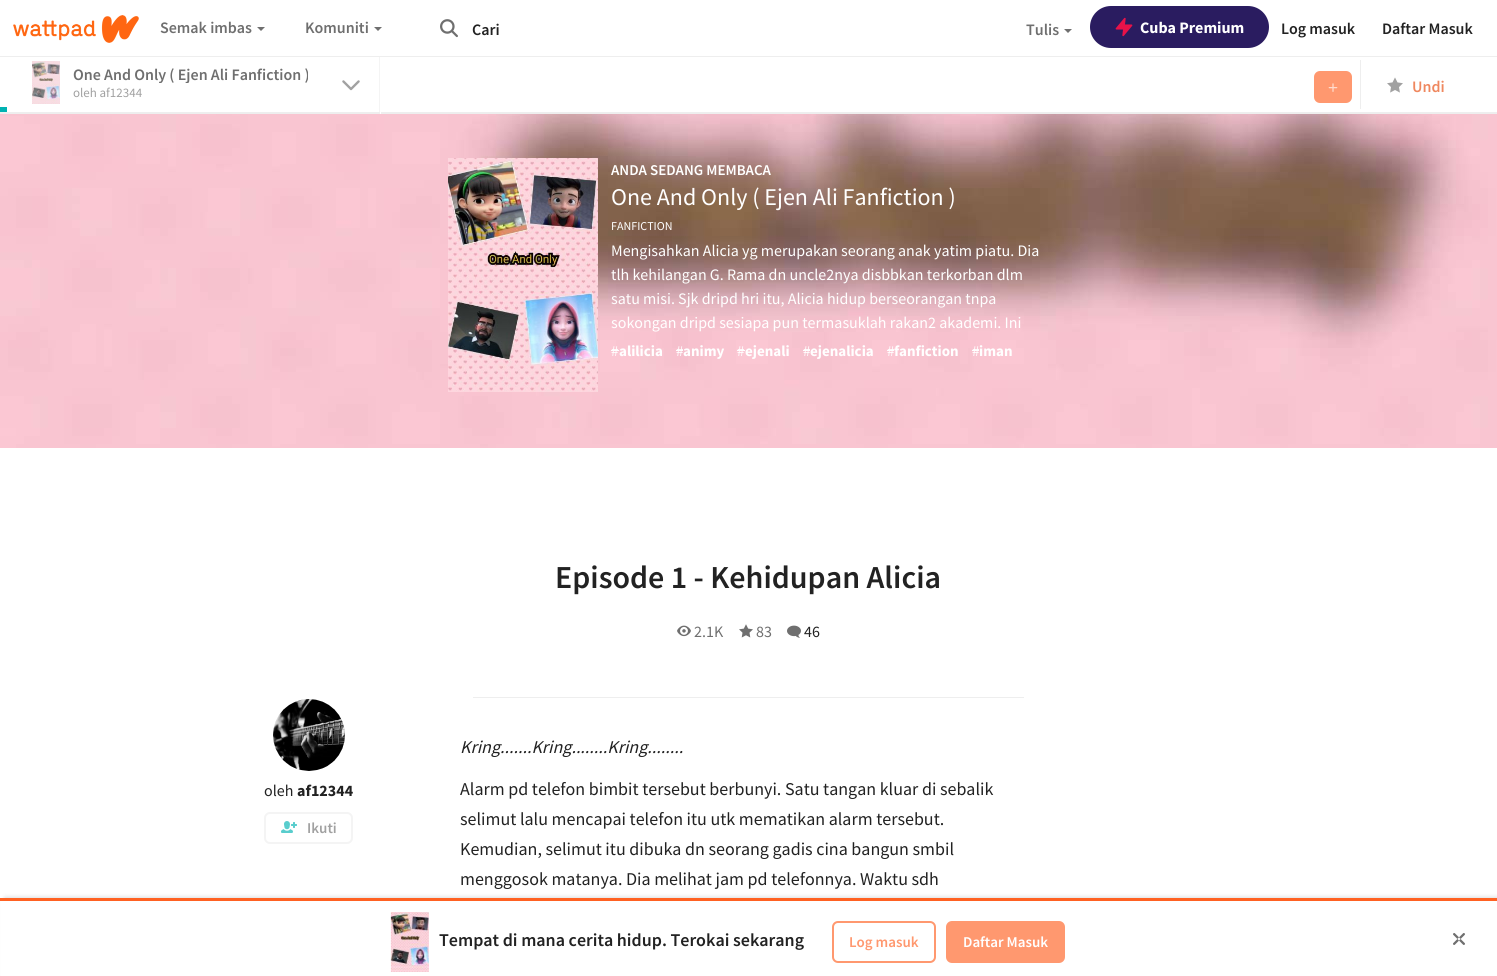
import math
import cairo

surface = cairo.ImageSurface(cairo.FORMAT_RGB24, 1497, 976)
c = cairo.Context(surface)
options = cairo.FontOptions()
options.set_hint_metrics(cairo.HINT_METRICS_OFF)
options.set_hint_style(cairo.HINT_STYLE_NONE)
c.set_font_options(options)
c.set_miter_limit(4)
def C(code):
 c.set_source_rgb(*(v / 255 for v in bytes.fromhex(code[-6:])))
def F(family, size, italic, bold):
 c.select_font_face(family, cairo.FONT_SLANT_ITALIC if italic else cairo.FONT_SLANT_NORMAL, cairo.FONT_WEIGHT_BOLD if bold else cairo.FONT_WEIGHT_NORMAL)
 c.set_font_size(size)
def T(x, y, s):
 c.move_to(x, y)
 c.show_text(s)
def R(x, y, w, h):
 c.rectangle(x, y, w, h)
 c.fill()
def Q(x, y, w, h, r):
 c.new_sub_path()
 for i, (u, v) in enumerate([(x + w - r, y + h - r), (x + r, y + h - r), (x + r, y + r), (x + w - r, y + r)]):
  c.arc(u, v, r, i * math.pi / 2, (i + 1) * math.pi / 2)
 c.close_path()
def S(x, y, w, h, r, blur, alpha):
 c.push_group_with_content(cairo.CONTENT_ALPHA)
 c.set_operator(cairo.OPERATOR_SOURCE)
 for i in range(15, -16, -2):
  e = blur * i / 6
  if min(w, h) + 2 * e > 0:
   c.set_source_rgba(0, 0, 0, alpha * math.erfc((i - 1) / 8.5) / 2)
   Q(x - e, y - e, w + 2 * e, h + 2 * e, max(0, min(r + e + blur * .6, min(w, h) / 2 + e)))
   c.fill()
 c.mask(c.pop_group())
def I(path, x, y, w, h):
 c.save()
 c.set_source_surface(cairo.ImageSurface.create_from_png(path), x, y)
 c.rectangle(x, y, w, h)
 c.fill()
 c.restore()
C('ffffff')
c.paint()
C('eeeeee')
R(0,112,1497,2)
c.set_source_rgba(0.933,0.933,0.933,0.65)
c.new_path()
c.move_to(380,54)
c.line_to(380,114)
c.line_to(379,112)
c.line_to(379,56)
c.close_path()
c.fill()
C('ffffff')
R(379,54,1,2)
C('eeeeee')
R(0,56,1497,1)
I('1.png',13,15,126,28)
F('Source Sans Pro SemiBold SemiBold',16,0,0)
C('6f6f6f')
T(160,33,'Semak imbas')
c.new_path()
c.move_to(257,27)
c.line_to(265,27)
c.line_to(261,31)
c.close_path()
c.fill()
T(305,33,'Komuniti')
c.new_path()
c.move_to(374,27)
c.line_to(382,27)
c.line_to(378,31)
c.close_path()
c.fill()
I('2.png',440,19,18,19)
C('222222')
T(472,35,'Cari')
C('6f6f6f')
T(1026,35,'Tulis')
c.new_path()
c.move_to(1064,29)
c.line_to(1072,29)
c.line_to(1068,33)
c.close_path()
c.fill()
C('2a1c60')
Q(1090,6,179,42,21)
c.fill()
I('3.png',1115,17,18,20)
F('Source Sans Pro',16,0,1)
C('ffffff')
T(1140,33,'Cuba Premium')
F('Source Sans Pro SemiBold SemiBold',16,0,0)
C('222222')
T(1281,34,'Log masuk')
T(1382,34,'Daftar Masuk')
C('ffffff')
R(380,112,1,2)
C('f4f4f4')
R(32,61,28,43)
I('4.png',32,61,28,43)
c.save()
c.rectangle(73,65,237,18)
c.clip()
C('6f6f6f')
T(73,80,'One And Only ( Ejen Ali Fanfiction )')
c.restore()
F('Source Sans Pro',13,0,0)
C('a1a1a1')
T(73,97,'oleh af12344')
I('5.png',342,80,18,11)
C('ff986f')
Q(1314,71,38,32,6)
c.fill()
I('6.png',1328,83,10,9)
C('eeeeee')
R(1360,60,1,49)
I('7.png',1387,77,16,16)
F('Source Sans Pro SemiBold SemiBold',16,0,0)
C('ef885f')
T(1412,92,'Undi')
C('00b2b2')
R(0,107,7,5)
I('8.png',0,114,1497,334)
I('9.png',448,158,150,234)
F('Source Sans Pro SemiBold SemiBold',15,0,0)
C('ffffff')
T(611,175,'ANDA SEDANG MEMBACA')
F('Source Sans Pro',24,0,0)
T(611,205,'One And Only ( Ejen Ali Fanfiction )')
F('Source Sans Pro',12,0,0)
T(611,230,'FANFICTION')
F('Source Sans Pro',16,0,0)
T(611,256,'Mengisahkan Alicia yg merupakan seorang anak yatim piatu. Dia')
T(611,280,'tlh kehilangan G. Rama dn uncle2nya disbbkan terkorban dlm')
T(611,304,'satu misi. Sjk dripd hri itu, Alicia hidup berseorangan tnpa')
T(611,328,'sokongan dripd sesiapa pun termasuklah rakan2 akademi. Ini')
F('Source Sans Pro',15,0,0)
T(611,356,'#')
R(611,350,8,1)
F('Source Sans Pro',15,0,1)
T(619,356,'alilicia')
F('Source Sans Pro',15,0,0)
T(676,356,'#')
R(676,350,7,1)
F('Source Sans Pro',15,0,1)
T(683,356,'animy')
F('Source Sans Pro',15,0,0)
T(737,356,'#')
R(737,350,8,1)
F('Source Sans Pro',15,0,1)
T(745,356,'ejenali')
F('Source Sans Pro',15,0,0)
T(803,356,'#')
R(803,350,7,1)
F('Source Sans Pro',15,0,1)
T(810,356,'ejenalicia')
F('Source Sans Pro',15,0,0)
T(887,356,'#')
R(887,350,7,1)
F('Source Sans Pro',15,0,1)
T(894,356,'fanfiction')
F('Source Sans Pro',15,0,0)
T(972,356,'#')
R(972,350,7,1)
F('Source Sans Pro',15,0,1)
T(979,356,'iman')
F('Source Sans Pro SemiBold SemiBold',32,0,0)
C('222222')
T(555,588,'Episode 1 - Kehidupan Alicia')
I('10.png',677,625,14,12)
F('Source Sans Pro',16,0,0)
C('6f6f6f')
T(694,637,'2.1K')
I('11.png',739,624,14,14)
T(756,637,'83')
I('12.png',787,625,14,13)
C('222222')
T(804,637,'46')
C('eeeeee')
R(473,697,551,1)
c.new_path()
c.arc(309,735,36,0,2 * math.pi)
c.fill()
I('13.png',273,699,72,72)
C('222222')
T(264,796,'oleh')
F('Source Sans Pro',16,0,1)
T(297,796,'af12344')
Q(265,813,87,30,5)
C('f4f4f4')
c.stroke()
I('14.png',281,821,16,12)
F('Source Sans Pro SemiBold SemiBold',15,0,0)
C('a1a1a1')
T(307,833,'Ikuti')
F('Source Sans Pro',18,1,0)
C('222222')
T(460,753,'Kring.......Kring........Kring........')
F('Source Sans Pro',18,0,0)
T(460,795,'Alarm pd telefon bimbit tersebut berbunyi. Satu tangan kluar di sebalik')
T(460,825,'selimut lalu mencapai telefon itu utk mematikan alarm tersebut.')
T(460,855,'Kemudian, selimut itu dibuka dn seorang gadis cina bangun smbil')
T(460,885,'menggosok matanya. Dia melihat jam pd telefonnya. Waktu sdh')
C('000000')
S(5,898,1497,78,0,2.5,.2)
C('ffffff')
R(1,901,1496,75)
C('ff6122')
R(0,898,1497,3)
I('15.png',390,912,39,60)
F('Source Sans Pro SemiBold SemiBold',18,0,0)
C('222222')
T(439,946,'Tempat di mana cerita hidup. Terokai sekarang')
Q(833,922,102,40,5)
C('ff986f')
c.stroke()
F('Source Sans Pro SemiBold SemiBold',15,0,0)
T(849,947,'Log masuk')
Q(946,921,119,42,6)
c.fill()
C('ffffff')
T(963,947,'Daftar Masuk')
I('16.png',1453,933,12,12)
surface.write_to_png('o.png')
